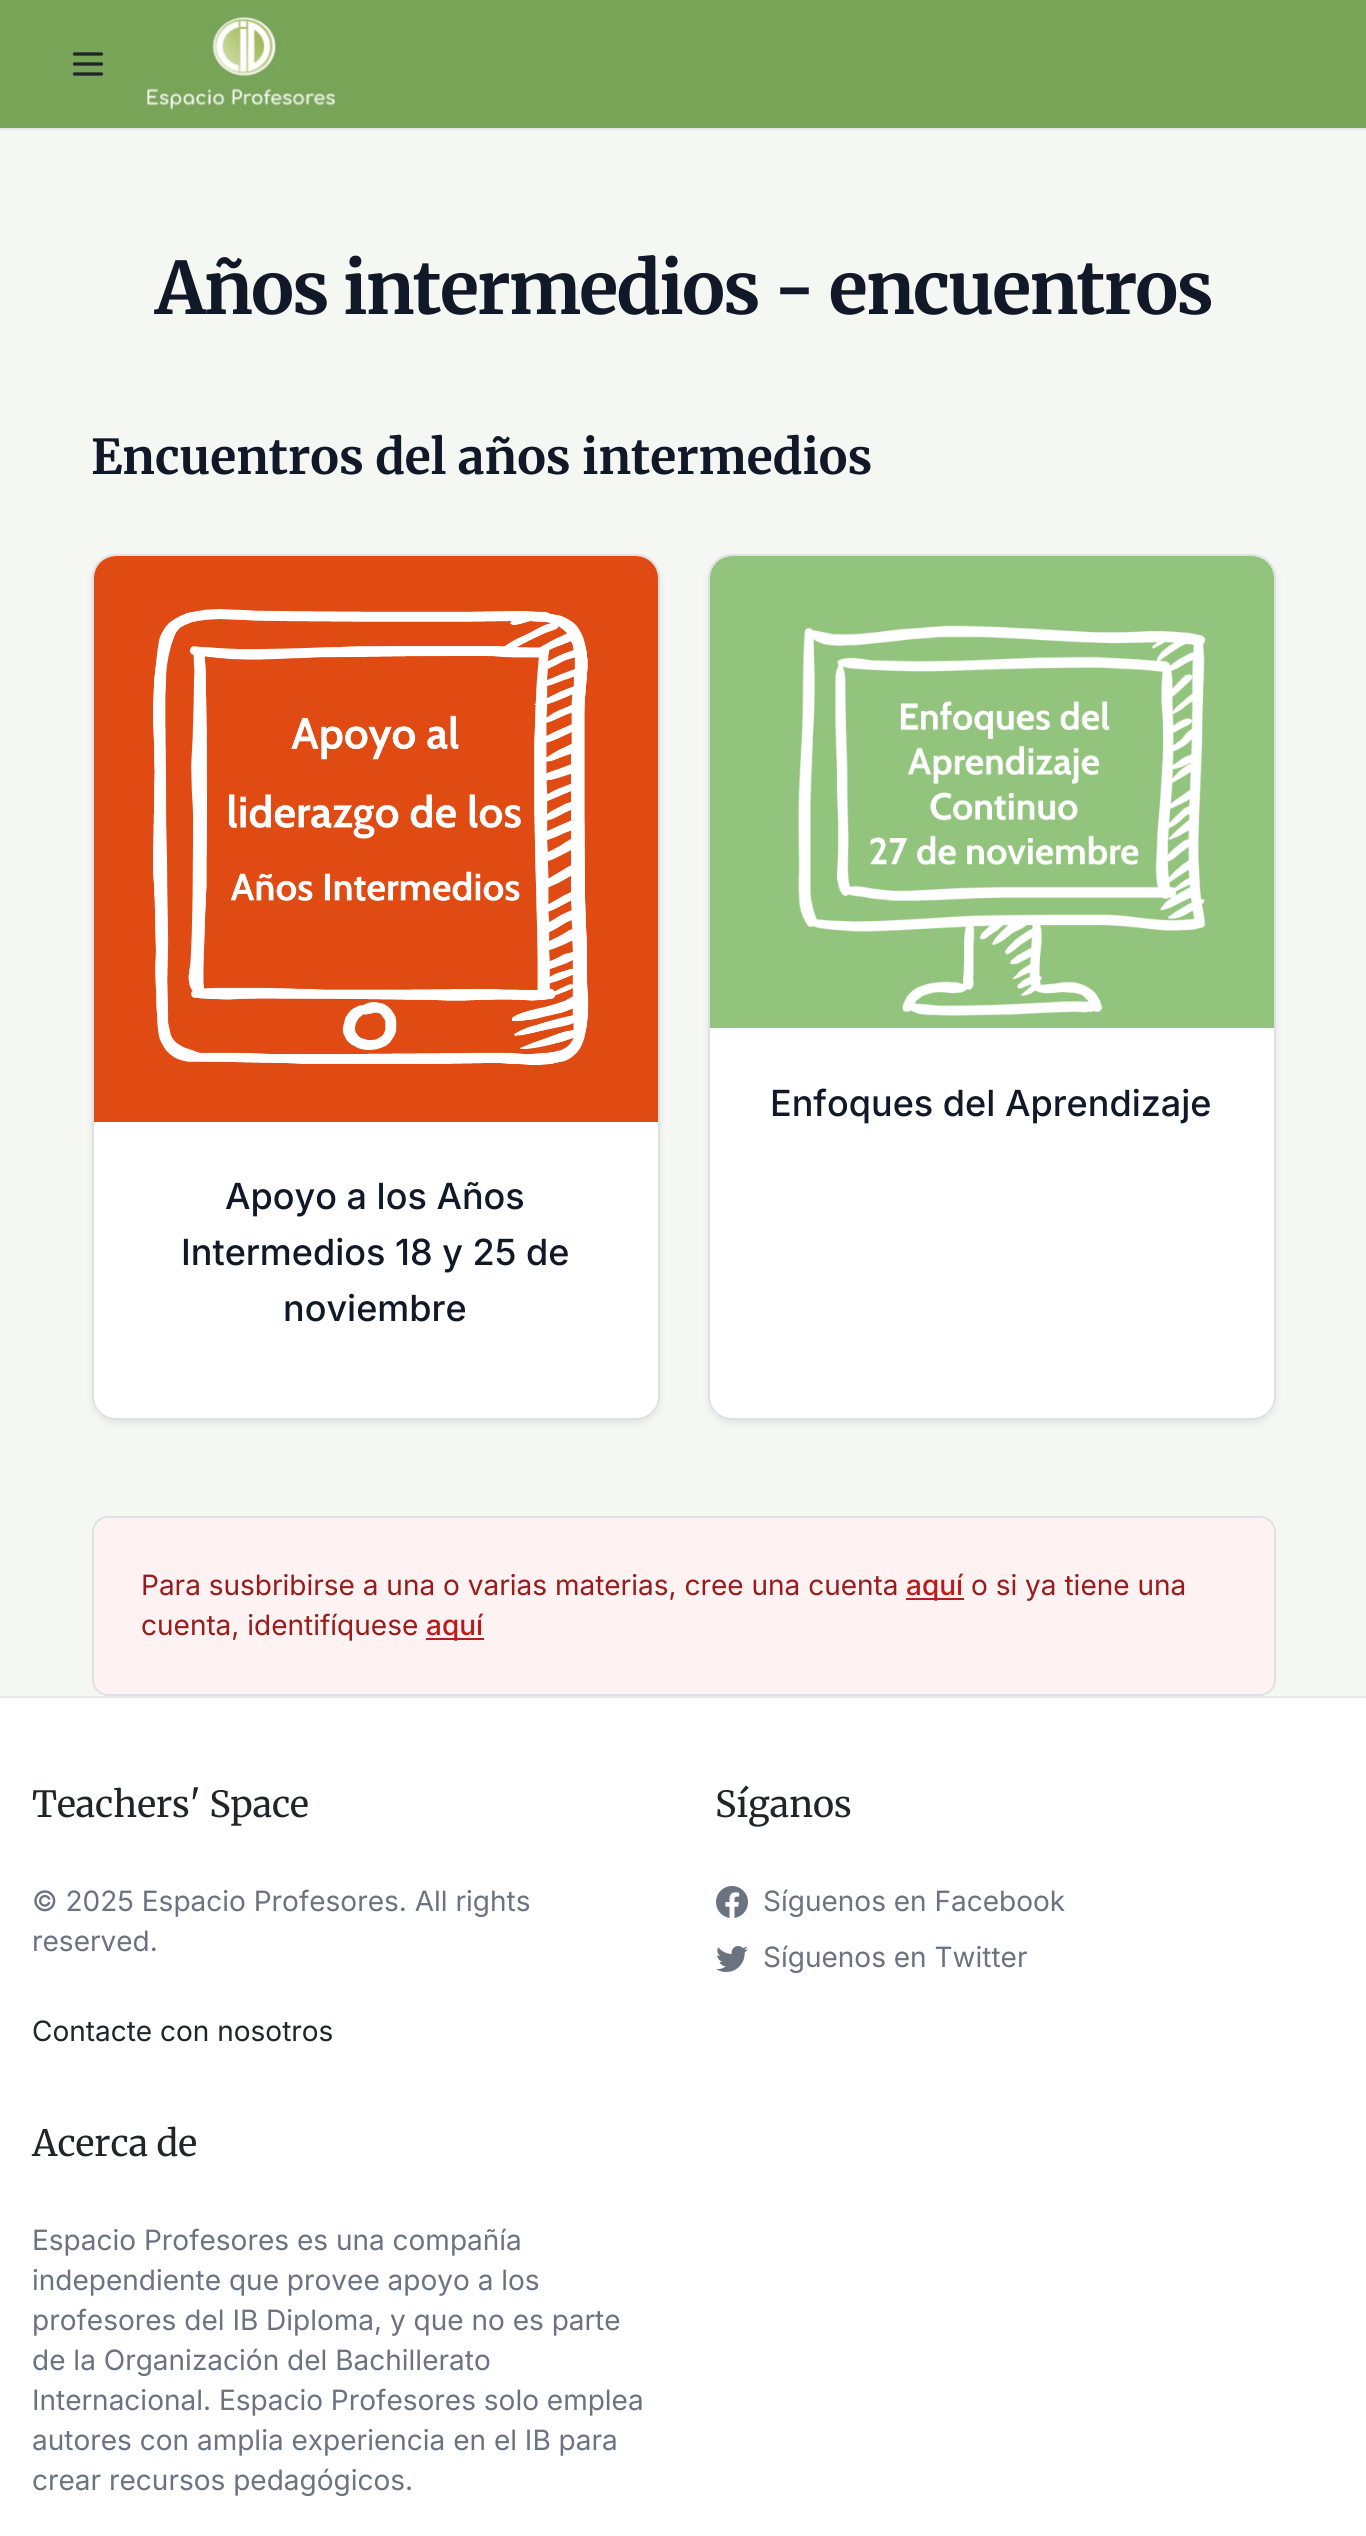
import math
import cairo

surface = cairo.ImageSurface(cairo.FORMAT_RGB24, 1366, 2536)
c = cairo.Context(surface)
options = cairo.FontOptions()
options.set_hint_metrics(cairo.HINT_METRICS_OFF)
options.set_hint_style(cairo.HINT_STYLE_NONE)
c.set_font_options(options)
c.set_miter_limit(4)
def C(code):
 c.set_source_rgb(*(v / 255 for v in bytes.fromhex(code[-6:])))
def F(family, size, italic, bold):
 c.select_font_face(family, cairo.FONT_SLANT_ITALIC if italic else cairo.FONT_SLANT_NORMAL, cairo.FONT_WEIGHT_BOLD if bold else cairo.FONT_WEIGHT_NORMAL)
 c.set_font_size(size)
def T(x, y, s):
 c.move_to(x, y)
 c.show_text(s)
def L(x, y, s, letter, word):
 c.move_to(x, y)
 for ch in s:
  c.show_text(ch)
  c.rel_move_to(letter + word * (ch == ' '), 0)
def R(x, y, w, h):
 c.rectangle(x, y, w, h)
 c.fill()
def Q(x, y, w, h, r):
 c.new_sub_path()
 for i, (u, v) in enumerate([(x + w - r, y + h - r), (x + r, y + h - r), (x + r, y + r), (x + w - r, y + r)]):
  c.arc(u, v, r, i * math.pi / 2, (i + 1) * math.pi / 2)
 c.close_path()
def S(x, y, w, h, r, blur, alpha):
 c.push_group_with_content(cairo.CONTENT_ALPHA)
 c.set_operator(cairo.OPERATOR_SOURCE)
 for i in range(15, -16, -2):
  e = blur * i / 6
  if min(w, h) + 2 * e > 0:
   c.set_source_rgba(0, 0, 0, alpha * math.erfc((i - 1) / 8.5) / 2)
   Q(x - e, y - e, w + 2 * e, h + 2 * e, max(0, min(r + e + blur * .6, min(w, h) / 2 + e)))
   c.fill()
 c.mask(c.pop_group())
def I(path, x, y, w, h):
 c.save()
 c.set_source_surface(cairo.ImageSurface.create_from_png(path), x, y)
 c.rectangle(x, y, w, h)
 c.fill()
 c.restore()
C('f5f7f3')
c.paint()
C('79a559')
R(0,0,1366,128)
C('e5e7eb')
R(0,128,1366,2)
c.new_path()
c.move_to(74.5,64)
c.line_to(101.5,64)
c.move_to(74.5,54)
c.line_to(101.5,54)
c.move_to(74.5,74)
c.line_to(101.5,74)
C('212529')
c.set_line_width(3.3)
c.set_line_cap(cairo.LINE_CAP_ROUND)
c.set_line_join(cairo.LINE_JOIN_ROUND)
c.stroke()
I('1.png',146,17,190,93)
F('Merriweather',72,0,1)
C('111827')
L(155,314,'Años intermedios - encuentros',-1.8,0)
F('Merriweather',48,0,1)
T(91,474,'Encuentros del años intermedios')
C('000000')
S(708,558,568,866,24,4,.07)
C('ffffff')
Q(709,555,566,864,23)
c.fill_preserve()
C('dee2e6')
c.set_line_width(2)
c.set_line_cap(cairo.LINE_CAP_BUTT)
c.set_line_join(cairo.LINE_JOIN_MITER)
c.stroke()
C('f3f4f6')
c.new_path()
c.move_to(732,556)
c.line_to(1252,556)
c.curve_to(1264,556,1274,566,1274,578)
c.line_to(1274,1028)
c.line_to(710,1028)
c.line_to(710,578)
c.curve_to(710,566,720,556,732,556)
c.close_path()
c.fill()
I('2.png',710,556,564,472)
F('Inter Medium',36,0,0)
C('111827')
T(770,1116,'Enfoques del Aprendizaje')
C('000000')
S(92,558,568,866,24,4,.07)
C('ffffff')
Q(93,555,566,864,23)
c.fill_preserve()
C('dee2e6')
c.stroke()
C('f3f4f6')
c.new_path()
c.move_to(116,556)
c.line_to(636,556)
c.curve_to(648,556,658,566,658,578)
c.line_to(658,1122)
c.line_to(94,1122)
c.line_to(94,578)
c.curve_to(94,566,104,556,116,556)
c.close_path()
c.fill()
I('3.png',94,556,564,566)
C('111827')
T(225,1209,'Apoyo a los Años')
T(181,1265,'Intermedios 18 y 25 de')
T(283,1321,'noviembre')
C('fef2f2')
Q(93,1517,1182,178,15)
c.fill_preserve()
C('dee2e6')
c.stroke()
F('Inter',28,0,0)
C('991b1b')
T(141,1595,'Para susbribirse a una o varias materias, cree una cuenta')
C('b91c1c')
R(906,1598,58,2)
F('Inter Medium',28,0,0)
T(906,1595,'aquí')
F('Inter',28,0,0)
C('991b1b')
T(971,1595,'o si ya tiene una')
T(141,1635,'cuenta, identifíquese')
C('b91c1c')
R(426,1638,58,2)
F('Inter Medium',28,0,0)
T(426,1635,'aquí')
C('ffffff')
R(0,1698,1366,838)
C('e5e7eb')
R(0,1696,1366,2)
F('Merriweather',36,0,0)
C('212529')
T(32,1817,'Teachers\' Space')
F('Inter',28,0,0)
C('6b7280')
T(32,1911,'© 2025 Espacio Profesores. All rights')
T(32,1951,'reserved.')
C('212529')
T(32,2041,'Contacte con nosotros')
F('Merriweather',36,0,0)
T(715,1817,'Síganos')
I('4.png',716,1886,32,32)
F('Inter',28,0,0)
C('6b7280')
T(763,1911,'Síguenos en Facebook')
I('5.png',716,1946,32,26)
T(763,1967,'Síguenos en Twitter')
F('Merriweather',36,0,0)
C('212529')
T(32,2156,'Acerca de')
F('Inter',28,0,0)
C('6b7280')
T(32,2250,'Espacio Profesores es una compañía')
T(32,2290,'independiente que provee apoyo a los')
T(32,2330,'profesores del IB Diploma, y que no es parte')
T(32,2370,'de la Organización del Bachillerato')
T(32,2410,'Internacional. Espacio Profesores solo emplea')
T(32,2450,'autores con amplia experiencia en el IB para')
T(32,2490,'crear recursos pedagógicos.')
surface.write_to_png('o.png')
